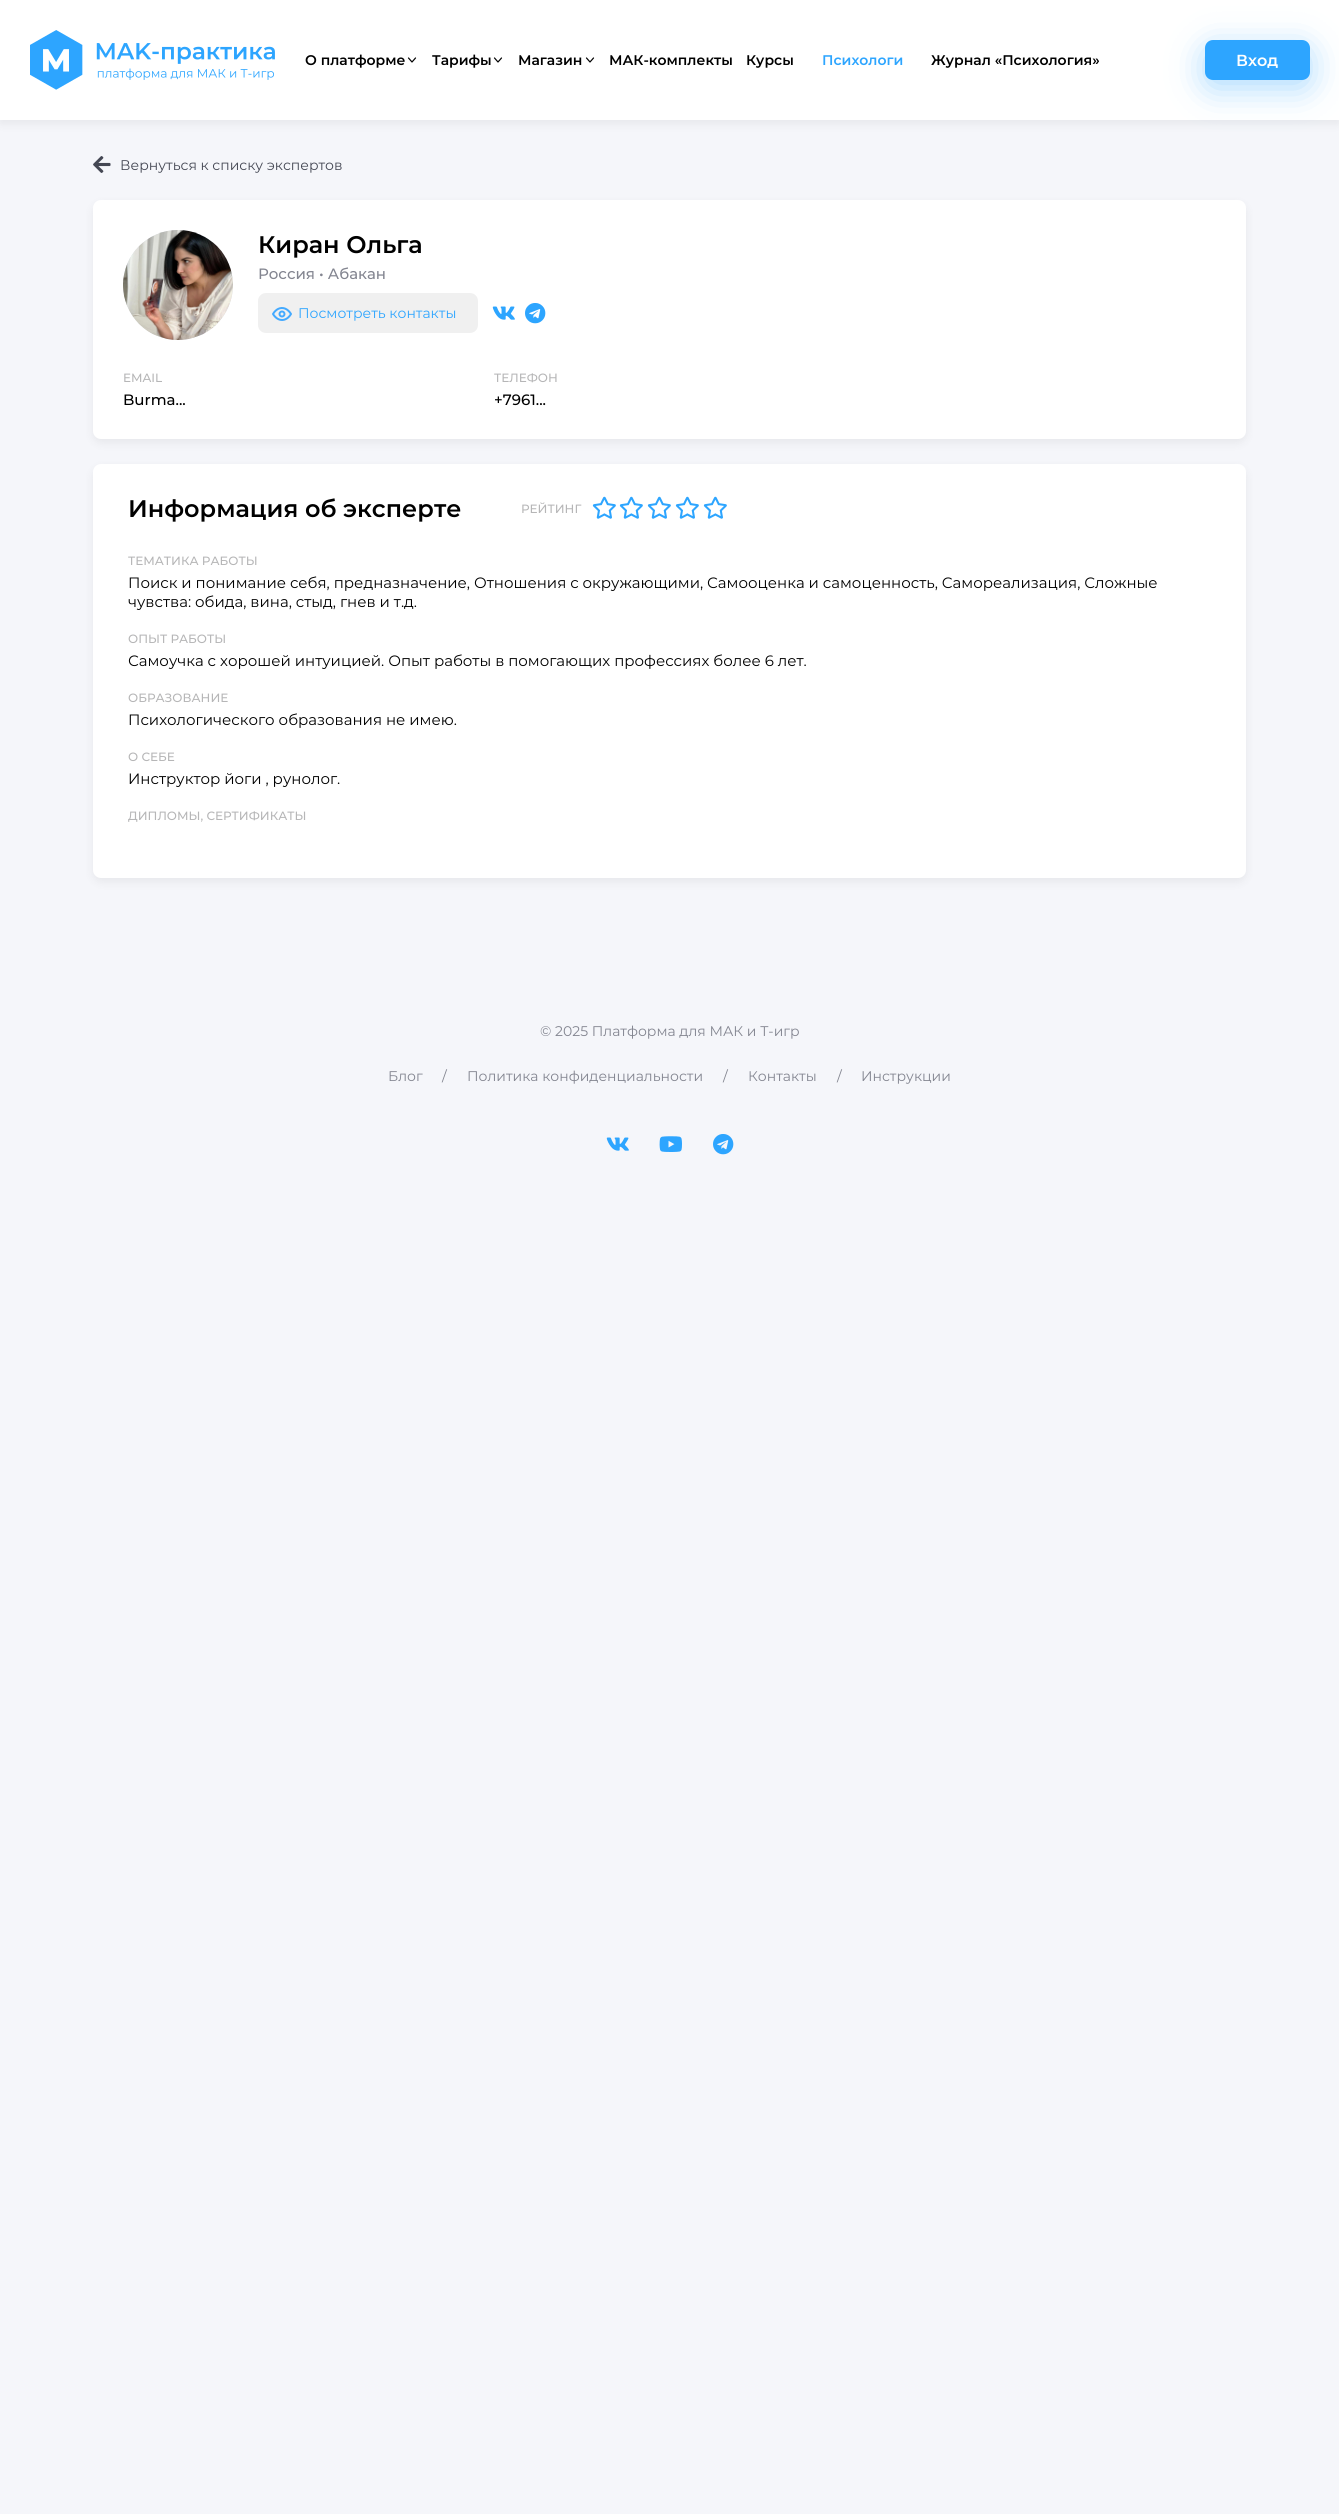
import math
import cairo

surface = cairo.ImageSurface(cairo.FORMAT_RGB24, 1339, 2514)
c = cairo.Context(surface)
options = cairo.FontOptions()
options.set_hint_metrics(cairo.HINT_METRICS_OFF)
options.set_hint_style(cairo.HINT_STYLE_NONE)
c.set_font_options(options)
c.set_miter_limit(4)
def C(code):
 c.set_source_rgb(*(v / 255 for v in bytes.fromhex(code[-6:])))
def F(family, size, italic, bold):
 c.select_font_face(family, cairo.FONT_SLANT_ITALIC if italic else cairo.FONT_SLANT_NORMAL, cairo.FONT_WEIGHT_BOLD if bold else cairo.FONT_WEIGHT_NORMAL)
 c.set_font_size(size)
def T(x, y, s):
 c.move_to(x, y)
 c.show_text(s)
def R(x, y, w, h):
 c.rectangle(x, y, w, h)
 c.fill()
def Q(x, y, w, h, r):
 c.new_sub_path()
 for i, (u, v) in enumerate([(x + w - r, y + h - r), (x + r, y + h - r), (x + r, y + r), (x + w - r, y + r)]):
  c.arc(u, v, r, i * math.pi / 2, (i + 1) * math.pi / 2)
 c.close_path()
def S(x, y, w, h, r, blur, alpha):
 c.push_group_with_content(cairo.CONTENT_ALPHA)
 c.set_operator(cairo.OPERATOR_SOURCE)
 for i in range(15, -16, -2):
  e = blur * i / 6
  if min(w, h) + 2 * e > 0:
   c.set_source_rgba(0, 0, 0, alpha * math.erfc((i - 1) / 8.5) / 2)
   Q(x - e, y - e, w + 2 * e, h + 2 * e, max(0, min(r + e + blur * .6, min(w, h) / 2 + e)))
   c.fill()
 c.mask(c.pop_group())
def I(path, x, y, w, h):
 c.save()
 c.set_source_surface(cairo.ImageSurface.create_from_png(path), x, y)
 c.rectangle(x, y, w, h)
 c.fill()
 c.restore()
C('f5f6fa')
c.paint()
C('000000')
S(0,4,1339,120,0,5,.06)
C('ffffff')
R(0,0,1339,120)
I('1.png',30,30,245,60)
F('Montserrat SemiBold',14,0,0)
C('000000')
T(305,65,'О платформе')
c.new_path()
c.move_to(408.5,58)
c.line_to(412,62)
c.line_to(415.5,58)
c.set_line_width(1.2)
c.set_line_cap(cairo.LINE_CAP_ROUND)
c.set_line_join(cairo.LINE_JOIN_ROUND)
c.stroke()
T(432,65,'Тарифы')
c.new_path()
c.move_to(494.5,58)
c.line_to(498,62)
c.line_to(501.5,58)
c.stroke()
T(518,65,'Магазин')
c.new_path()
c.move_to(586.5,58)
c.line_to(590,62)
c.line_to(593.5,58)
c.stroke()
T(609,65,'МАК-комплекты')
T(746,65,'Курсы')
C('2da5ff')
T(822,65,'Психологи')
C('000000')
T(931,65,'Журнал «Психология»')
C('2da5ff')
S(1205,48,105,40,8,17,.4)
C('2da5ff')
Q(1205,40,105,40,8)
c.fill()
F('Montserrat SemiBold',16,0,0)
C('ffffff')
T(1236,66,'Вход')
I('2.png',93,156,18,17)
F('Montserrat',14,0,0)
C('444753')
T(120,170,'Вернуться к списку экспертов')
C('000000')
S(93,204,1153,239,8,5,.06)
C('ffffff')
Q(93,200,1153,239,8)
c.fill()
C('dfe2eb')
c.arc(178,285,55,0,2 * math.pi)
c.fill()
I('3.png',123,230,110,110)
F('Montserrat SemiBold',24,0,0)
C('000000')
T(258,253,'Киран Ольга')
F('Montserrat Medium',15,0,0)
C('838590')
T(258,279,'Россия • Абакан')
C('f0f0f0')
Q(258,293,220,40,8)
c.fill()
I('4.png',272,307,20,14)
F('Montserrat',14,0,0)
C('2da5ff')
T(298,318,'Посмотреть контакты')
I('5.png',492,306,23,14)
I('6.png',525,303,21,21)
F('Montserrat Medium',12,0,0)
C('b6b6b7')
T(123,382,'EMAIL')
F('Montserrat Medium',15,0,0)
C('000000')
T(123,405,'Burma...')
F('Montserrat Medium',12,0,0)
C('b6b6b7')
T(494,382,'ТЕЛЕФОН')
F('Montserrat Medium',15,0,0)
C('000000')
T(494,405,'+7961...')
C('000000')
S(93,468,1153,414,8,5,.06)
C('ffffff')
Q(93,464,1153,414,8)
c.fill()
F('Montserrat SemiBold',24,0,0)
C('000000')
T(128,517,'Информация об эксперте')
F('Montserrat Medium',12,0,0)
C('b6b6b7')
T(521,513,'РЕЙТИНГ')
I('7.png',592,496,24,23)
I('7.png',619,496,24,23)
I('7.png',647,496,24,23)
I('7.png',675,496,24,23)
I('7.png',703,496,24,23)
T(128,565,'ТЕМАТИКА РАБОТЫ')
F('Montserrat',15,0,0)
C('000000')
T(128,588,'Поиск и понимание себя, предназначение, Отношения с окружающими, Самооценка и самоценность, Самореализация, Сложные')
T(128,607,'чувства: обида, вина, стыд, гнев и т.д.')
F('Montserrat Medium',12,0,0)
C('b6b6b7')
T(128,643,'ОПЫТ РАБОТЫ')
F('Montserrat',15,0,0)
C('000000')
T(128,666,'Самоучка с хорошей интуицией. Опыт работы в помогающих профессиях более 6 лет.')
F('Montserrat Medium',12,0,0)
C('b6b6b7')
T(128,702,'ОБРАЗОВАНИЕ')
F('Montserrat',15,0,0)
C('000000')
T(128,725,'Психологического образования не имею.')
F('Montserrat Medium',12,0,0)
C('b6b6b7')
T(128,761,'О СЕБЕ')
F('Montserrat',15,0,0)
C('000000')
T(128,784,'Инструктор йоги , рунолог.')
F('Montserrat Medium',12,0,0)
C('b6b6b7')
T(128,820,'ДИПЛОМЫ, СЕРТИФИКАТЫ')
F('Montserrat',14,0,0)
C('838590')
T(540,1036,'© 2025 Платформа для МАК и Т-игр')
T(388,1081,'Блог')
T(442,1081,'/')
T(467,1081,'Политика конфиденциальности')
T(723,1081,'/')
T(748,1081,'Контакты')
T(837,1081,'/')
T(861,1081,'Инструкции')
I('8.png',606,1137,23,14)
I('9.png',659,1136,23,16)
I('10.png',713,1134,21,21)
surface.write_to_png('o.png')
